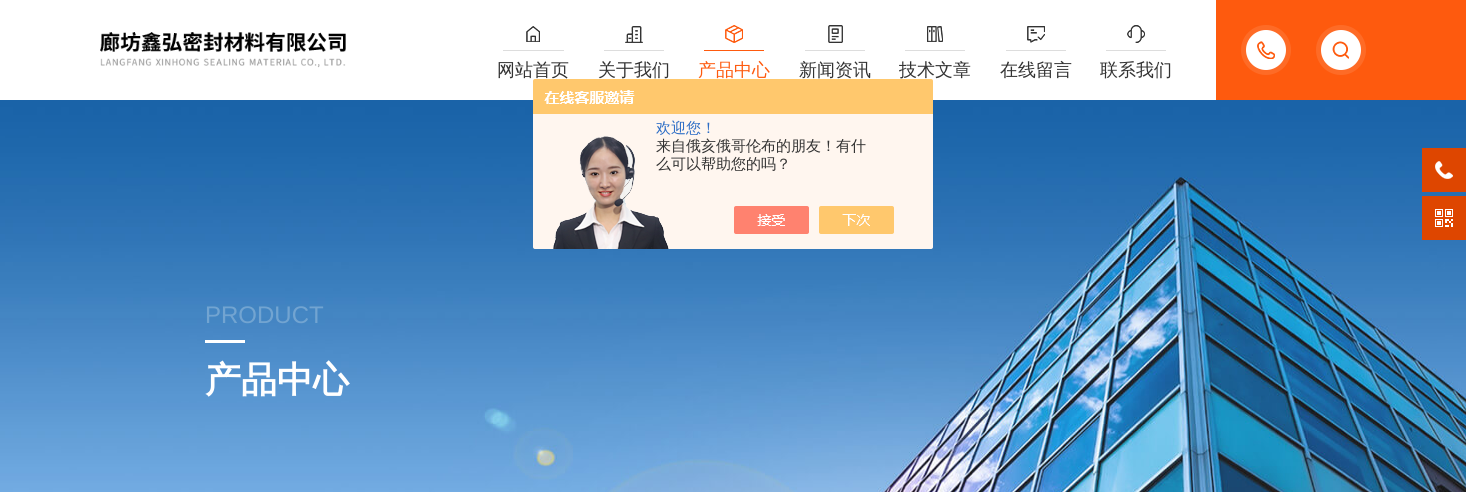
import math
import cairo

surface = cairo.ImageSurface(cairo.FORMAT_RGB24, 1466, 492)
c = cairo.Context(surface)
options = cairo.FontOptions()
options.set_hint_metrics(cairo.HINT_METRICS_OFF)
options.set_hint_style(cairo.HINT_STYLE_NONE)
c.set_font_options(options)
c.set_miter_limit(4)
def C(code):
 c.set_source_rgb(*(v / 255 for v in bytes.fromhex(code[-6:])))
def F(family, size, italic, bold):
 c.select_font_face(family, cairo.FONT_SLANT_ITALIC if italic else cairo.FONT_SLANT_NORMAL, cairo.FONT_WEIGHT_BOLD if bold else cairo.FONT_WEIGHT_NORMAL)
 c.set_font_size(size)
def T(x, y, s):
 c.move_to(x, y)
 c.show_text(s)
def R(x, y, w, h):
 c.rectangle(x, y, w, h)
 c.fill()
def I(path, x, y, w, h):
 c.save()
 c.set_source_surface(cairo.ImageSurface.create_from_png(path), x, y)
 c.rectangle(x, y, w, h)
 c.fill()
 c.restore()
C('ffffff')
c.paint()
I('1.png',100,32,246,36)
I('2.png',526,26,14,16)
C('dddddd')
R(503,50,61,1)
F('WenQuanYi Zen Hei Medium',18,0,0)
C('333333')
T(497,76,'网站首页')
I('3.png',625,26,18,17)
C('dddddd')
R(604,50,60,1)
C('333333')
T(598,76,'关于我们')
I('4.png',725,25,18,18)
C('fe5a0e')
R(704,50,60,1)
T(698,76,'产品中心')
I('5.png',828,25,15,18)
C('dddddd')
R(805,50,60,1)
C('333333')
T(799,76,'新闻资讯')
I('6.png',927,26,16,16)
C('dddddd')
R(905,50,60,1)
C('333333')
T(899,76,'技术文章')
I('7.png',1027,26,18,17)
C('dddddd')
R(1006,50,60,1)
C('333333')
T(1000,76,'在线留言')
I('8.png',1127,25,18,18)
C('dddddd')
R(1106,50,60,1)
C('333333')
T(1100,76,'联系我们')
C('fe5a0e')
R(1216,0,250,100)
C('fe6b26')
c.new_path()
c.arc(1266,50,25,0,2 * math.pi)
c.fill()
C('ffffff')
c.arc(1266,50,20,0,2 * math.pi)
c.fill()
I('9.png',1257,41,18,18)
C('fe6b26')
c.arc(1341,50,25,0,2 * math.pi)
c.fill()
C('ffffff')
c.arc(1341,50,20,0,2 * math.pi)
c.fill()
I('10.png',1332,41,17,18)
I('14.png',0,100,1466,392)
I('11.png',533,79,400,170)
F('WenQuanYi Zen Hei Medium',15,0,0)
C('2e6ec6')
T(656,133,'欢迎您！')
C('333333')
T(656,151,'来自俄亥俄哥伦布的朋友！有什')
T(656,169,'么可以帮助您的吗？')
C('de4600')
R(1422,148,44,44)
I('12.png',1435,161,18,18)
R(1422,196,44,44)
I('13.png',1435,209,18,18)
F('Liberation Sans',24,0,0)
C('72a4d1')
T(205,323,'PRODUCT')
C('ffffff')
R(205,340,40,3)
F('WenQuanYi Zen Hei',36,0,1)
T(205,392,'产品中心')
surface.write_to_png('o.png')
